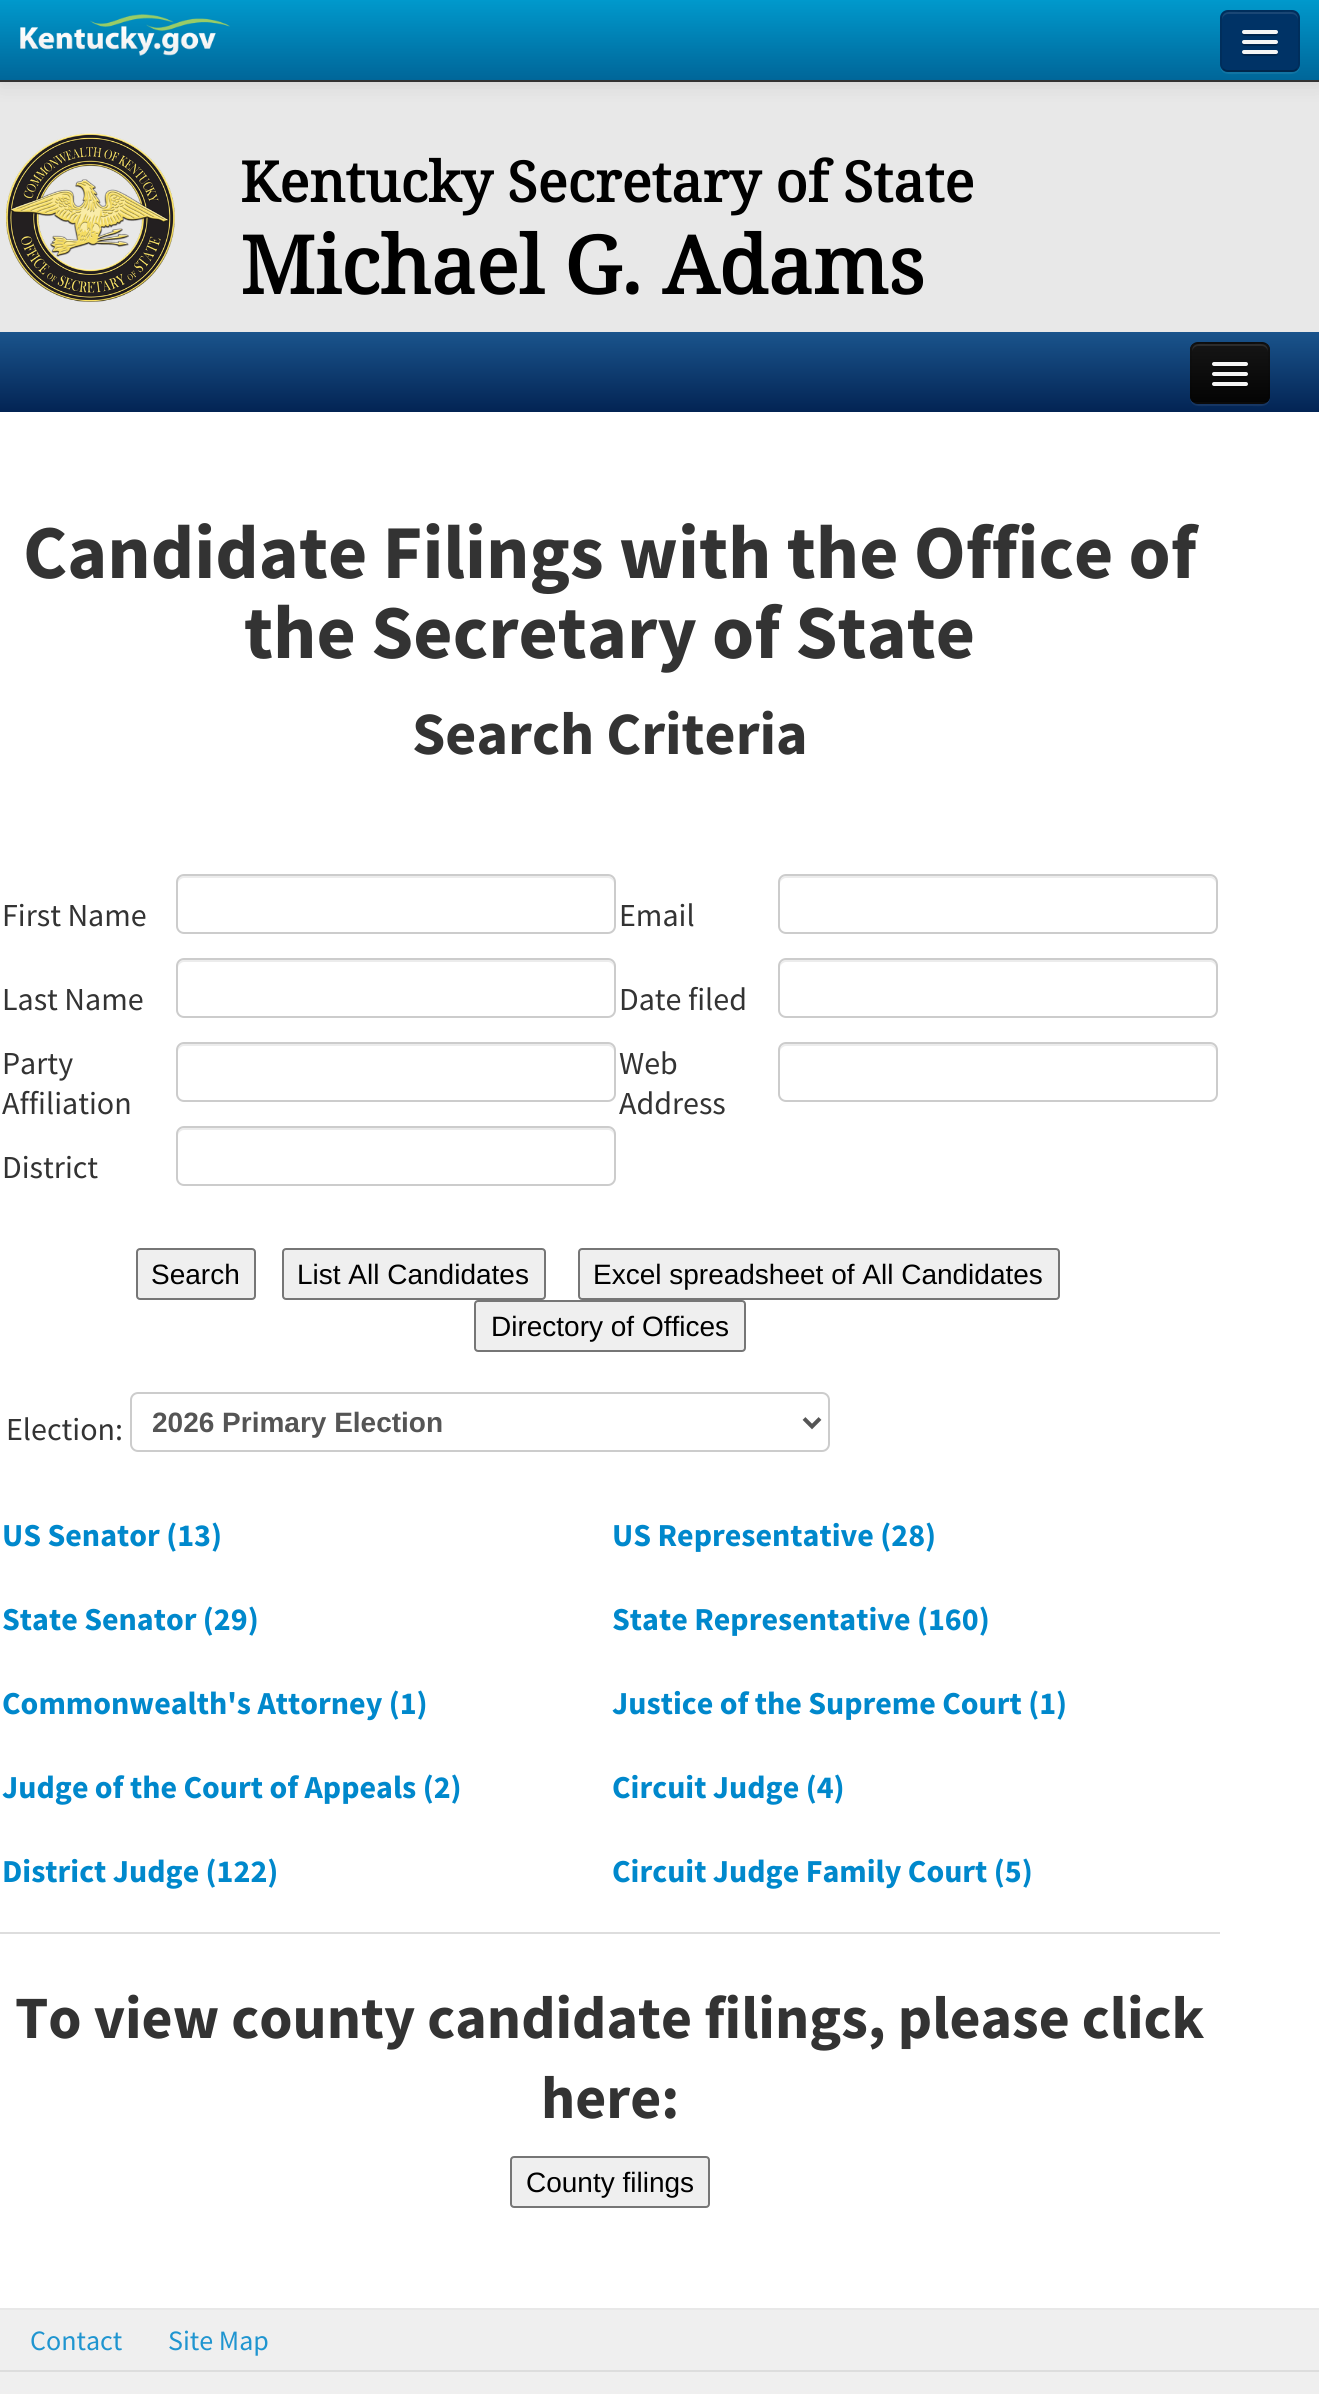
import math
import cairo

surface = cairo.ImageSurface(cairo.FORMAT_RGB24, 1319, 2394)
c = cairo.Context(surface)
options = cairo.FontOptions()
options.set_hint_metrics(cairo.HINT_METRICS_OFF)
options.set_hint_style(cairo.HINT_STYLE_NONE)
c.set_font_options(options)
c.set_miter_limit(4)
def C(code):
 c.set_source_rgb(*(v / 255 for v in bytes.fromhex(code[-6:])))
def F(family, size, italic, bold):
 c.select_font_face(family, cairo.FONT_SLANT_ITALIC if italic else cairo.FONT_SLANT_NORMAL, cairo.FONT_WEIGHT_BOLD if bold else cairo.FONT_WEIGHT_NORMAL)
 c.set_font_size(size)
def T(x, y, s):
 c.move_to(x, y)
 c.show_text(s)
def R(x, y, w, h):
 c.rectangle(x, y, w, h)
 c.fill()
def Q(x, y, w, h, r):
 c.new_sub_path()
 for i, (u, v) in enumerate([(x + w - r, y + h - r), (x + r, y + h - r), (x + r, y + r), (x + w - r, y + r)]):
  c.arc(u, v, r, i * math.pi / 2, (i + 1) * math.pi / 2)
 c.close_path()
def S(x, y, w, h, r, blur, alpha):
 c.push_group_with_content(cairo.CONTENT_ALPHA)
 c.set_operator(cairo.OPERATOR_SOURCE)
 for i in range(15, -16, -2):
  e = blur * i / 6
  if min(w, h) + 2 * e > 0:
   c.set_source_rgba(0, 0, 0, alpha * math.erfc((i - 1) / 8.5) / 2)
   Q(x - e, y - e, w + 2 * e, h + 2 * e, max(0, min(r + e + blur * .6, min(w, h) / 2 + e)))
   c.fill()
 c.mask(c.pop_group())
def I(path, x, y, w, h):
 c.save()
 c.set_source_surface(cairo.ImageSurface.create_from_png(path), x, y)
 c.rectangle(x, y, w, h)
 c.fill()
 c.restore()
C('e8e8e8')
c.paint()
C('000000')
S(0,2,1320,82,0,10,.1)
gradient = cairo.LinearGradient(660,0,660,80)
gradient.add_color_stop_rgba(0,0,0.6,0.8,1)
gradient.add_color_stop_rgba(1,0,0.4,0.6,1)
c.set_source(gradient)
R(0,0,1319,80)
C('333333')
R(0,80,1319,2)
I('1.png',20,14,210,42)
c.set_source_rgba(1,1,1,0.07)
c.new_path()
c.move_to(1220,64)
c.curve_to(1220,76,1229,74,1239,74)
c.line_to(1281,74)
c.curve_to(1291,74,1300,76,1300,64)
c.curve_to(1300,68,1296,72,1292,72)
c.line_to(1228,72)
c.curve_to(1224,72,1220,68,1220,64)
c.close_path()
c.fill()
C('003366')
Q(1220,10,80,62,8)
c.fill()
C('1a4775')
c.new_path()
c.move_to(1228,14)
c.line_to(1292,14)
c.curve_to(1295,14,1298,17,1298,20)
c.curve_to(1298,10,1290,12,1281,12)
c.line_to(1239,12)
c.curve_to(1230,12,1222,10,1222,20)
c.curve_to(1222,17,1225,14,1228,14)
c.close_path()
c.fill()
c.new_path()
c.move_to(1297,69)
c.curve_to(1295.5,70.5,1294,71,1292,71)
c.line_to(1228,71)
c.curve_to(1226,71,1224.5,70.5,1223,69)
c.set_source_rgba(0,0,0,0.25)
c.stroke()
c.new_path()
c.move_to(1223,69)
c.curve_to(1221.5,67.5,1221,66,1221,64)
c.line_to(1221,18)
c.curve_to(1221,16,1221.5,14.5,1223,13)
c.curve_to(1224.5,11.5,1226,11,1228,11)
c.line_to(1292,11)
c.curve_to(1294,11,1295.5,11.5,1297,13)
c.curve_to(1298.5,14.5,1299,16,1299,18)
c.line_to(1299,64)
c.curve_to(1299,66,1298.5,67.5,1297,69)
c.set_source_rgba(0,0,0,0.1)
c.stroke()
C('00264d')
c.new_path()
c.move_to(1242.5,33)
c.curve_to(1240,37,1249,36,1249.5,36)
c.line_to(1270.5,36)
c.curve_to(1271,36,1280,37,1277.5,33)
c.curve_to(1277.5,33.5,1276.5,34,1276,34)
c.line_to(1244,34)
c.curve_to(1243.5,34,1242.5,33.5,1242.5,33)
c.close_path()
c.fill()
C('f5f5f5')
Q(1242,30,36,4,2)
c.fill()
C('00264d')
c.new_path()
c.move_to(1242.5,43)
c.curve_to(1240,47,1249,46,1249.5,46)
c.line_to(1270.5,46)
c.curve_to(1271,46,1280,47,1277.5,43)
c.curve_to(1277.5,43.5,1276.5,44,1276,44)
c.line_to(1244,44)
c.curve_to(1243.5,44,1242.5,43.5,1242.5,43)
c.close_path()
c.fill()
C('f5f5f5')
Q(1242,40,36,4,2)
c.fill()
C('00264d')
c.new_path()
c.move_to(1242.5,53)
c.curve_to(1240,57,1249,56,1249.5,56)
c.line_to(1270.5,56)
c.curve_to(1271,56,1280,57,1277.5,53)
c.curve_to(1277.5,53.5,1276.5,54,1276,54)
c.line_to(1244,54)
c.curve_to(1243.5,54,1242.5,53.5,1242.5,53)
c.close_path()
c.fill()
C('f5f5f5')
Q(1242,50,36,4,2)
c.fill()
I('2.png',6,133,169,169)
F('Noto Serif',56,0,1)
C('000000')
T(240,202,'Kentucky Secretary of State')
F('Noto Serif',80,0,1)
T(240,294,'Michael G. Adams')
gradient = cairo.LinearGradient(660,332,660,412)
gradient.add_color_stop_rgba(0,0.102,0.329,0.549,1)
gradient.add_color_stop_rgba(1,0.012,0.141,0.329,1)
c.set_source(gradient)
R(0,332,1319,80)
c.set_source_rgba(1,1,1,0.07)
c.new_path()
c.move_to(1190,396)
c.curve_to(1190,408,1199,406,1209,406)
c.line_to(1251,406)
c.curve_to(1261,406,1270,408,1270,396)
c.curve_to(1270,400,1266,404,1262,404)
c.line_to(1198,404)
c.curve_to(1194,404,1190,400,1190,396)
c.close_path()
c.fill()
C('0e0e0e')
Q(1190,342,80,62,8)
c.fill()
c.save()
Q(1190,342,80,62,8)
c.clip()
gradient = cairo.LinearGradient(1230,344,1230,402)
gradient.add_color_stop_rgba(0,0.082,0.082,0.082,1)
gradient.add_color_stop_rgba(1,0.016,0.016,0.016,1)
c.set_source(gradient)
R(1190,344,80,58)
c.restore()
C('2c2c2c')
c.new_path()
c.move_to(1198,346)
c.line_to(1262,346)
c.curve_to(1265,346,1268,349,1268,352)
c.curve_to(1268,342,1260,344,1251,344)
c.line_to(1209,344)
c.curve_to(1200,344,1192,342,1192,352)
c.curve_to(1192,349,1195,346,1198,346)
c.close_path()
c.fill()
c.new_path()
c.move_to(1267,401)
c.curve_to(1265.5,402.5,1264,403,1262,403)
c.line_to(1198,403)
c.curve_to(1196,403,1194.5,402.5,1193,401)
c.set_source_rgba(0,0,0,0.25)
c.stroke()
c.new_path()
c.move_to(1193,401)
c.curve_to(1191.5,399.5,1191,398,1191,396)
c.line_to(1191,350)
c.curve_to(1191,348,1191.5,346.5,1193,345)
c.curve_to(1194.5,343.5,1196,343,1198,343)
c.line_to(1262,343)
c.curve_to(1264,343,1265.5,343.5,1267,345)
c.curve_to(1268.5,346.5,1269,348,1269,350)
c.line_to(1269,396)
c.curve_to(1269,398,1268.5,399.5,1267,401)
c.set_source_rgba(0,0,0,0.1)
c.stroke()
C('0b0b0b')
c.new_path()
c.move_to(1212.5,365)
c.curve_to(1210,369,1219,368,1219.5,368)
c.line_to(1240.5,368)
c.curve_to(1241,368,1250,369,1247.5,365)
c.curve_to(1247.5,365.5,1246.5,366,1246,366)
c.line_to(1214,366)
c.curve_to(1213.5,366,1212.5,365.5,1212.5,365)
c.close_path()
c.fill()
C('f5f5f5')
Q(1212,362,36,4,2)
c.fill()
C('080808')
c.new_path()
c.move_to(1212.5,375)
c.curve_to(1210,379,1219,378,1219.5,378)
c.line_to(1240.5,378)
c.curve_to(1241,378,1250,379,1247.5,375)
c.curve_to(1247.5,375.5,1246.5,376,1246,376)
c.line_to(1214,376)
c.curve_to(1213.5,376,1212.5,375.5,1212.5,375)
c.close_path()
c.fill()
C('f5f5f5')
Q(1212,372,36,4,2)
c.fill()
C('060606')
c.new_path()
c.move_to(1212.5,385)
c.curve_to(1210,389,1219,388,1219.5,388)
c.line_to(1240.5,388)
c.curve_to(1241,388,1250,389,1247.5,385)
c.curve_to(1247.5,385.5,1246.5,386,1246,386)
c.line_to(1214,386)
c.curve_to(1213.5,386,1212.5,385.5,1212.5,385)
c.close_path()
c.fill()
C('f5f5f5')
Q(1212,382,36,4,2)
c.fill()
C('ffffff')
R(0,412,1319,1896)
F('Source Sans Pro',76,0,1)
C('333333')
T(23,578,'Candidate Filings with the Office of')
T(244,658,'the Secretary of State')
F('Source Sans Pro',60,0,1)
T(412,754,'Search Criteria')
F('Source Sans Pro',32,0,0)
T(2,926,'First Name')
C('ececec')
c.new_path()
c.move_to(184,878)
c.line_to(608,878)
c.curve_to(611,878,614,881,614,884)
c.line_to(614,882)
c.curve_to(614,879,611,876,608,876)
c.line_to(184,876)
c.curve_to(181,876,178,879,178,882)
c.line_to(178,884)
c.curve_to(178,881,181,878,184,878)
c.close_path()
c.fill()
Q(177,875,438,58,7)
C('cccccc')
c.stroke()
C('333333')
T(619,926,'Email')
C('ececec')
c.new_path()
c.move_to(786,878)
c.line_to(1210,878)
c.curve_to(1213,878,1216,881,1216,884)
c.line_to(1216,882)
c.curve_to(1216,879,1213,876,1210,876)
c.line_to(786,876)
c.curve_to(783,876,780,879,780,882)
c.line_to(780,884)
c.curve_to(780,881,783,878,786,878)
c.close_path()
c.fill()
Q(779,875,438,58,7)
C('cccccc')
c.stroke()
C('333333')
T(2,1010,'Last Name')
C('ececec')
c.new_path()
c.move_to(184,962)
c.line_to(608,962)
c.curve_to(611,962,614,965,614,968)
c.line_to(614,966)
c.curve_to(614,963,611,960,608,960)
c.line_to(184,960)
c.curve_to(181,960,178,963,178,966)
c.line_to(178,968)
c.curve_to(178,965,181,962,184,962)
c.close_path()
c.fill()
Q(177,959,438,58,7)
C('cccccc')
c.stroke()
C('333333')
T(619,1010,'Date filed')
C('ececec')
c.new_path()
c.move_to(786,962)
c.line_to(1210,962)
c.curve_to(1213,962,1216,965,1216,968)
c.line_to(1216,966)
c.curve_to(1216,963,1213,960,1210,960)
c.line_to(786,960)
c.curve_to(783,960,780,963,780,966)
c.line_to(780,968)
c.curve_to(780,965,783,962,786,962)
c.close_path()
c.fill()
Q(779,959,438,58,7)
C('cccccc')
c.stroke()
C('333333')
T(2,1074,'Party')
T(2,1114,'Affiliation')
C('ececec')
c.new_path()
c.move_to(184,1046)
c.line_to(608,1046)
c.curve_to(611,1046,614,1049,614,1052)
c.line_to(614,1050)
c.curve_to(614,1047,611,1044,608,1044)
c.line_to(184,1044)
c.curve_to(181,1044,178,1047,178,1050)
c.line_to(178,1052)
c.curve_to(178,1049,181,1046,184,1046)
c.close_path()
c.fill()
Q(177,1043,438,58,7)
C('cccccc')
c.stroke()
C('333333')
T(619,1074,'Web')
T(619,1114,'Address')
C('ececec')
c.new_path()
c.move_to(786,1046)
c.line_to(1210,1046)
c.curve_to(1213,1046,1216,1049,1216,1052)
c.line_to(1216,1050)
c.curve_to(1216,1047,1213,1044,1210,1044)
c.line_to(786,1044)
c.curve_to(783,1044,780,1047,780,1050)
c.line_to(780,1052)
c.curve_to(780,1049,783,1046,786,1046)
c.close_path()
c.fill()
Q(779,1043,438,58,7)
C('cccccc')
c.stroke()
C('333333')
T(2,1178,'District')
C('ececec')
c.new_path()
c.move_to(184,1130)
c.line_to(608,1130)
c.curve_to(611,1130,614,1133,614,1136)
c.line_to(614,1134)
c.curve_to(614,1131,611,1128,608,1128)
c.line_to(184,1128)
c.curve_to(181,1128,178,1131,178,1134)
c.line_to(178,1136)
c.curve_to(178,1133,181,1130,184,1130)
c.close_path()
c.fill()
Q(177,1127,438,58,7)
C('cccccc')
c.stroke()
C('efefef')
Q(137,1249,118,50,3)
c.fill_preserve()
C('767676')
c.stroke()
F('Liberation Sans',28,0,0)
C('000000')
T(151,1284,'Search')
C('efefef')
Q(283,1249,262,50,3)
c.fill_preserve()
C('767676')
c.stroke()
C('000000')
T(297,1284,'List All Candidates')
C('efefef')
Q(579,1249,480,50,3)
c.fill_preserve()
C('767676')
c.stroke()
C('000000')
T(593,1284,'Excel spreadsheet of All Candidates')
C('efefef')
Q(475,1301,270,50,3)
c.fill_preserve()
C('767676')
c.stroke()
C('000000')
T(491,1336,'Directory of Offices')
F('Source Sans Pro',32,0,0)
C('333333')
T(6,1440,'Election:')
Q(131,1393,698,58,7)
C('cccccc')
c.stroke()
c.new_path()
c.move_to(804,1418.5)
c.line_to(812,1426.5)
c.line_to(820,1418.5)
C('555555')
c.set_line_width(4)
c.stroke()
F('Liberation Sans',28,0,1)
T(152,1432,'2026 Primary Election')
F('Source Sans Pro',32,0,1)
C('0088cc')
T(2,1546,'US Senator (13)')
T(612,1546,'US Representative (28)')
T(2,1630,'State Senator (29)')
T(612,1630,'State Representative (160)')
T(2,1714,'Commonwealth\'s Attorney (1)')
T(612,1714,'Justice of the Supreme Court (1)')
T(2,1798,'Judge of the Court of Appeals (2)')
T(612,1798,'Circuit Judge (4)')
T(2,1882,'District Judge (122)')
T(612,1882,'Circuit Judge Family Court (5)')
C('dddddd')
R(0,1932,1220,2)
F('Source Sans Pro',60,0,1)
C('333333')
T(15,2038,'To view county candidate filings, please click')
T(541,2118,'here:')
C('efefef')
Q(511,2157,198,50,3)
c.fill_preserve()
C('767676')
c.set_line_width(2)
c.stroke()
F('Liberation Sans',28,0,0)
C('000000')
T(526,2192,'County filings')
C('efefef')
R(0,2310,1319,60)
F('Source Sans Pro',28,0,0)
C('1f95d0')
T(30,2350,'Contact')
T(168,2350,'Site Map')
C('efefef')
R(0,2372,1319,22)
C('dddddd')
R(0,2370,1319,2)
surface.write_to_png('o.png')
